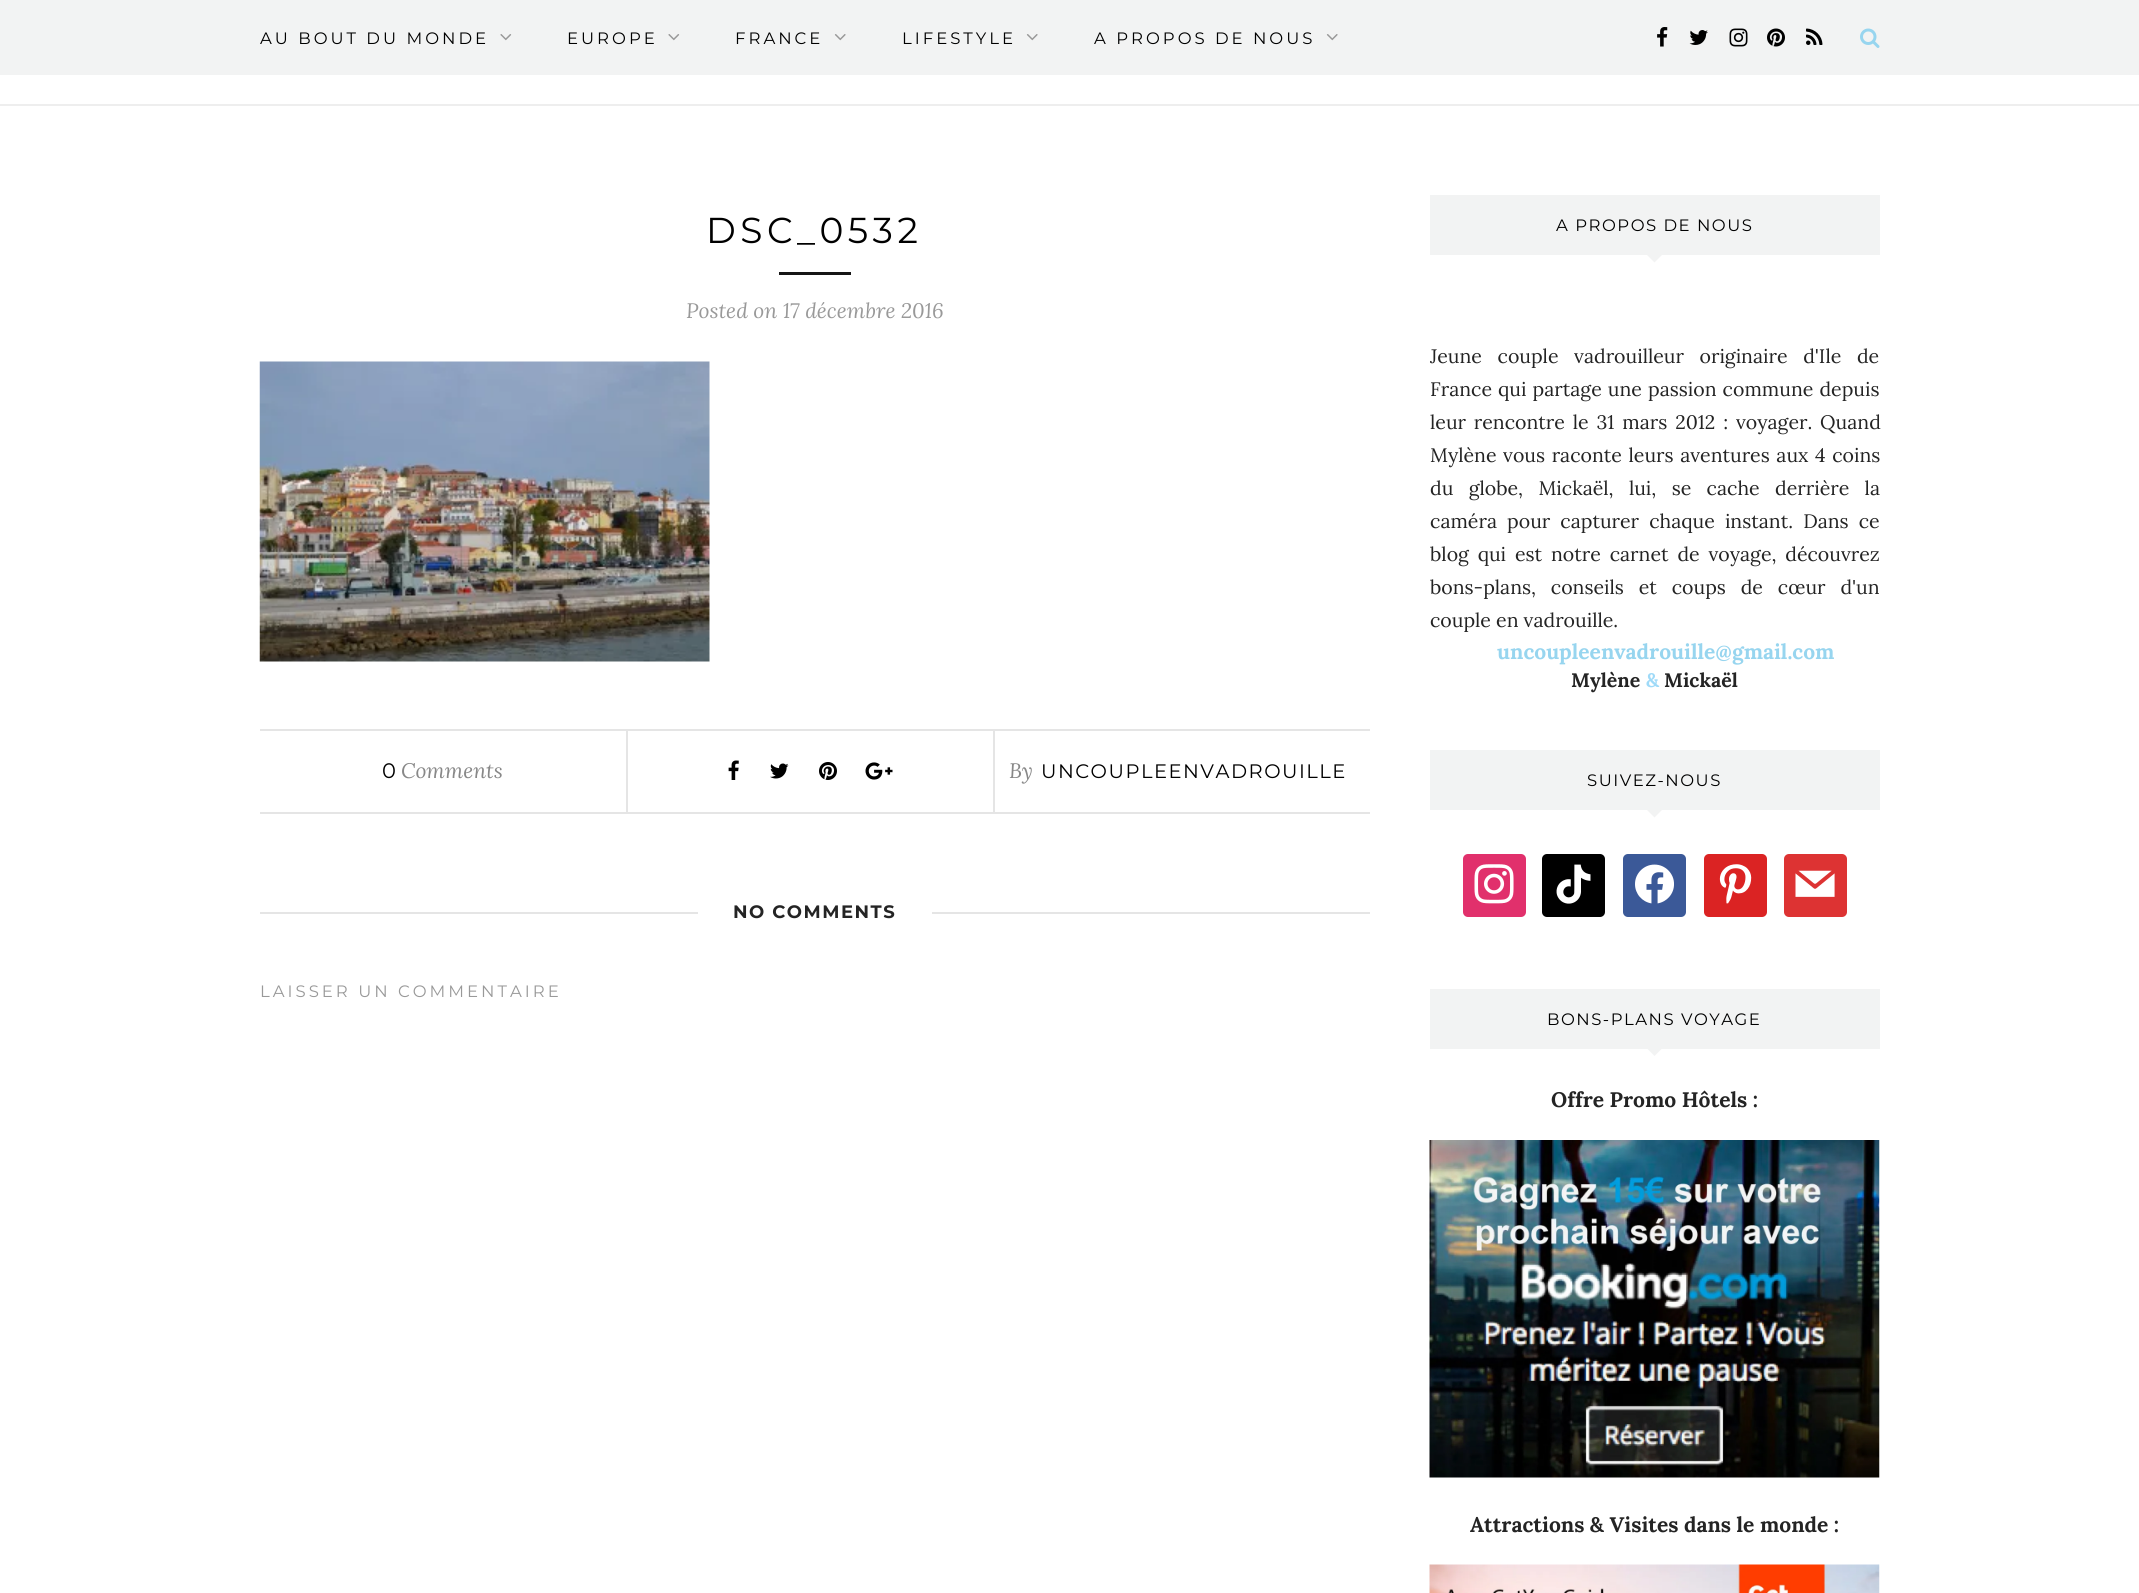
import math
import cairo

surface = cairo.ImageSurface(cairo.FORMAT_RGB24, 2139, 1593)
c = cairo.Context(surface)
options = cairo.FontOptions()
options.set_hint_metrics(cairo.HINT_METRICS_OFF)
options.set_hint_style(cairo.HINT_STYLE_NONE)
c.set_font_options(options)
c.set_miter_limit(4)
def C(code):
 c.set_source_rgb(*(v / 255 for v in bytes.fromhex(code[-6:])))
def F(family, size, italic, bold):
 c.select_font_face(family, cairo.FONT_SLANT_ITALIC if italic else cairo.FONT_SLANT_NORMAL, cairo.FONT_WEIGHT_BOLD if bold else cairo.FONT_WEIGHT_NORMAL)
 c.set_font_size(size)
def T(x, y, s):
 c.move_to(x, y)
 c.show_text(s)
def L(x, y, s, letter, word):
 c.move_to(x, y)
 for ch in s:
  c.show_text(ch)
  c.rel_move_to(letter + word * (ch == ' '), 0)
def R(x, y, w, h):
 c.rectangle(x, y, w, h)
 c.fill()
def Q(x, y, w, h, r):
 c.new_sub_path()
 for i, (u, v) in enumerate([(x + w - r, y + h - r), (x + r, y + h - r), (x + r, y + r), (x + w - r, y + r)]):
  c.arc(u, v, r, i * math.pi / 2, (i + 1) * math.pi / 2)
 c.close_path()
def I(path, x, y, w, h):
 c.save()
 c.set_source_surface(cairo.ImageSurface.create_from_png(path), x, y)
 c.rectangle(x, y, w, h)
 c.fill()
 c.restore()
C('ffffff')
c.paint()
C('f2f3f3')
R(0,0,2139,75)
F('Montserrat',16.5,0,0)
C('000000')
L(260,44,'AU BOUT DU MONDE',3,0)
I('1.png',500,34,12,7)
L(567,44,'EUROPE',3,0)
I('1.png',668,34,12,7)
L(735,44,'FRANCE',3,0)
I('2.png',834,34,12,7)
L(902,44,'LIFESTYLE',3,0)
I('2.png',1026,34,12,7)
L(1094,44,'A PROPOS DE NOUS',3,0)
I('2.png',1326,34,12,7)
I('3.png',1657,27,11,20)
I('4.png',1689,30,19,15)
I('5.png',1729,28,19,19)
I('6.png',1767,28,18,19)
I('7.png',1806,28,17,17)
I('8.png',1860,28,20,20)
C('eeeeee')
R(0,104,2139,2)
F('Montserrat',36,0,0)
C('000000')
L(706,243,'DSC_0532',4.5,0)
C('161616')
R(779,272,72,3)
F('Lora',21,1,0)
C('999999')
T(686,318,'Posted on 17 décembre 2016')
I('9.png',259,361,451,301)
C('e5e5e5')
R(260,729,1110,2)
R(260,812,1110,2)
F('Montserrat',21,0,0)
C('000000')
T(382,778,'0')
F('Lora',21,1,0)
C('888888')
T(401,778,'Comments')
C('e5e5e5')
R(626,731,2,81)
I('10.png',728,760,11,20)
I('11.png',770,763,19,16)
I('12.png',819,762,18,18)
I('13.png',865,762,28,18)
R(993,731,2,81)
C('888888')
T(1009,778,'By')
F('Montserrat',19.5,0,0)
C('000000')
L(1041,778,'UNCOUPLEENVADROUILLE',1.5,0)
C('e5e5e5')
R(260,912,1110,2)
C('ffffff')
R(698,912,234,2)
F('Montserrat',18,0,1)
C('242424')
L(733,918,'NO COMMENTS',1.5,0)
F('Montserrat',16.5,0,0)
C('999999')
L(260,997,'LAISSER UN COMMENTAIRE',3,0)
C('f2f3f3')
R(1430,195,450,60)
C('000000')
L(1556,231,'A PROPOS DE NOUS',1.5,0)
C('f2f3f3')
c.new_path()
c.move_to(1647,255)
c.line_to(1662,255)
c.line_to(1654.5,262.5)
c.close_path()
c.fill()
F('Lora',19.5,0,0)
C('242424')
L(1430,363,'Jeune couple vadrouilleur originaire d\'Ile de',0,10.5)
L(1430,396,'France qui partage une passion commune depuis',0,1)
L(1430,429,'leur rencontre le 31 mars 2012 : voyager. Quand',0,2.75)
L(1430,462,'Mylène vous raconte leurs aventures aux 4 coins',0,1.5)
L(1430,495,'du globe, Mickaël, lui, se cache derrière la',0,10.25)
L(1430,528,'caméra pour capturer chaque instant. Dans ce',0,5)
L(1430,561,'blog qui est notre carnet de voyage, découvrez',0,3.75)
L(1430,594,'bons-plans, conseils et coups de cœur d\'un',0,9.75)
T(1430,627,'couple en vadrouille.')
F('Lora',21,0,1)
C('97d5ef')
T(1497,659,'uncoupleenvadrouille@gmail.com')
F('Lora',19.5,0,1)
C('242424')
T(1571,687,'Mylène')
C('9fdaf8')
T(1646,687,'&')
C('242424')
T(1664,687,'Mickaël')
C('f2f3f3')
R(1430,750,450,60)
F('Montserrat',16.5,0,0)
C('000000')
L(1587,786,'SUIVEZ-NOUS',1.5,0)
C('f2f3f3')
c.new_path()
c.move_to(1647,810)
c.line_to(1662,810)
c.line_to(1654.5,817.5)
c.close_path()
c.fill()
C('e1306c')
Q(1463,854,63,63,5)
c.fill()
I('14.png',1474,864,40,40)
C('000000')
Q(1542,854,63,63,5)
c.fill()
I('15.png',1556,864,35,40)
C('3b5998')
Q(1623,854,63,63,5)
c.fill()
I('16.png',1635,864,39,40)
C('db2323')
Q(1704,854,63,63,5)
c.fill()
I('17.png',1719,864,33,40)
C('dd3333')
Q(1784,854,63,63,5)
c.fill()
I('18.png',1795,870,40,27)
C('f2f3f3')
R(1430,989,450,60)
C('000000')
L(1547,1025,'BONS-PLANS VOYAGE',1.5,0)
C('f2f3f3')
c.new_path()
c.move_to(1647,1048.5)
c.line_to(1662,1048.5)
c.line_to(1654.5,1056)
c.close_path()
c.fill()
F('Lora',21,0,1)
C('242424')
T(1551,1107,'Offre Promo Hôtels :')
I('19.png',1429,1140,451,338)
T(1470,1532,'Attractions & Visites dans le monde :')
I('20.png',1429,1564,451,29)
surface.write_to_png('o.png')
